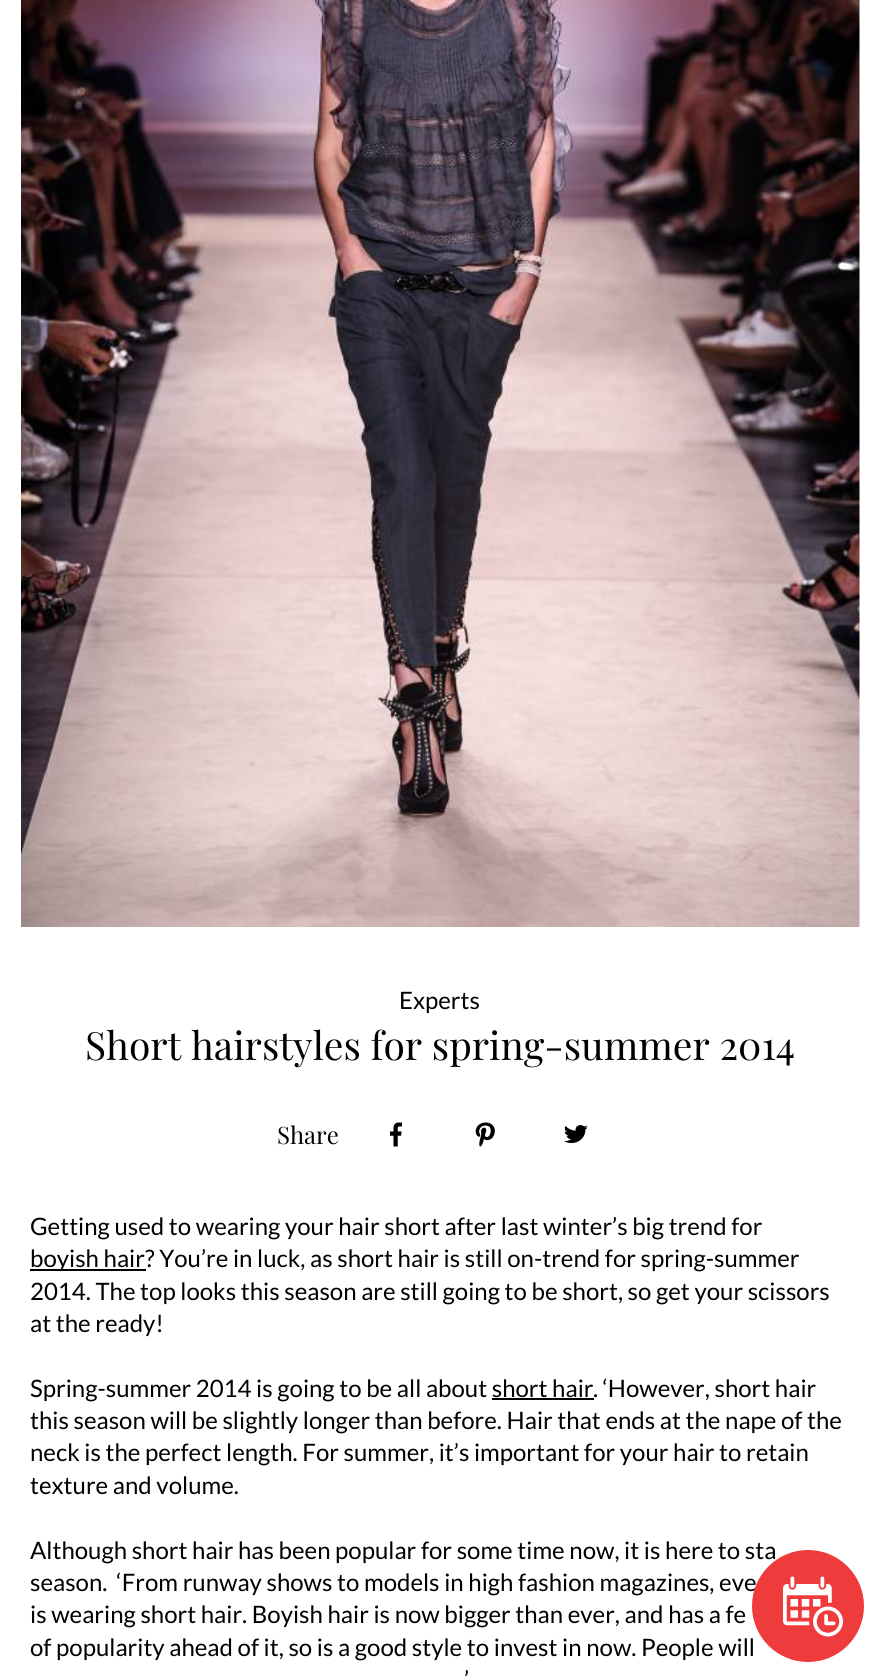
import math
import cairo

surface = cairo.ImageSurface(cairo.FORMAT_RGB24, 878, 1676)
c = cairo.Context(surface)
options = cairo.FontOptions()
options.set_hint_metrics(cairo.HINT_METRICS_OFF)
options.set_hint_style(cairo.HINT_STYLE_NONE)
c.set_font_options(options)
c.set_miter_limit(4)
def C(code):
 c.set_source_rgb(*(v / 255 for v in bytes.fromhex(code[-6:])))
def F(family, size, italic, bold):
 c.select_font_face(family, cairo.FONT_SLANT_ITALIC if italic else cairo.FONT_SLANT_NORMAL, cairo.FONT_WEIGHT_BOLD if bold else cairo.FONT_WEIGHT_NORMAL)
 c.set_font_size(size)
def T(x, y, s):
 c.move_to(x, y)
 c.show_text(s)
def R(x, y, w, h):
 c.rectangle(x, y, w, h)
 c.fill()
def I(path, x, y, w, h):
 c.save()
 c.set_source_surface(cairo.ImageSurface.create_from_png(path), x, y)
 c.rectangle(x, y, w, h)
 c.fill()
 c.restore()
C('ffffff')
c.paint()
I('1.png',21,0,839,927)
F('Lato',24,0,0)
C('000000')
T(399,1009,'Experts')
F('Playfair Display',38.9,0,0)
T(85,1060,'Short hairstyles for spring-summer 2014')
F('Playfair Display',24,0,0)
T(277,1144,'Share')
I('2.png',390,1122,12,25)
I('3.png',475,1122,20,25)
I('4.png',564,1125,24,19)
F('Lato',24,0,0)
T(30,1235,'Getting used to wearing your hair short after last winter’s big trend for')
R(30,1269,116,2)
T(30,1267,'boyish hair')
T(145,1267,'? You’re in luck, as short hair is still on-trend for spring-summer')
T(30,1300,'2014. The top looks this season are still going to be short, so get your scissors')
T(30,1332,'at the ready!')
T(30,1397,'Spring-summer 2014 is going to be all about short hair')
T(593,1397,'. ‘However, short hair')
R(492,1398,102,2)
T(30,1429,'this season will be slightly longer than before. Hair that ends at the nape of the')
T(30,1461,'neck is the perfect length. For summer, it’s important for your hair to retain')
T(30,1494,'texture and volume.')
T(30,1559,'Although short hair has been popular for some time now, it is here to sta')
T(30,1591,'season.  ‘From runway shows to models in high fashion magazines, eve')
T(30,1623,'is wearing short hair. Boyish hair is now bigger than ever, and has a fe')
T(30,1656,'of popularity ahead of it, so is a good style to invest in now. People will')
T(464,1688,'’')
C('ef3b3c')
c.new_path()
c.arc(808,1606,56,0,2 * math.pi)
c.fill()
I('5.png',783,1576,60,61)
surface.write_to_png('o.png')
